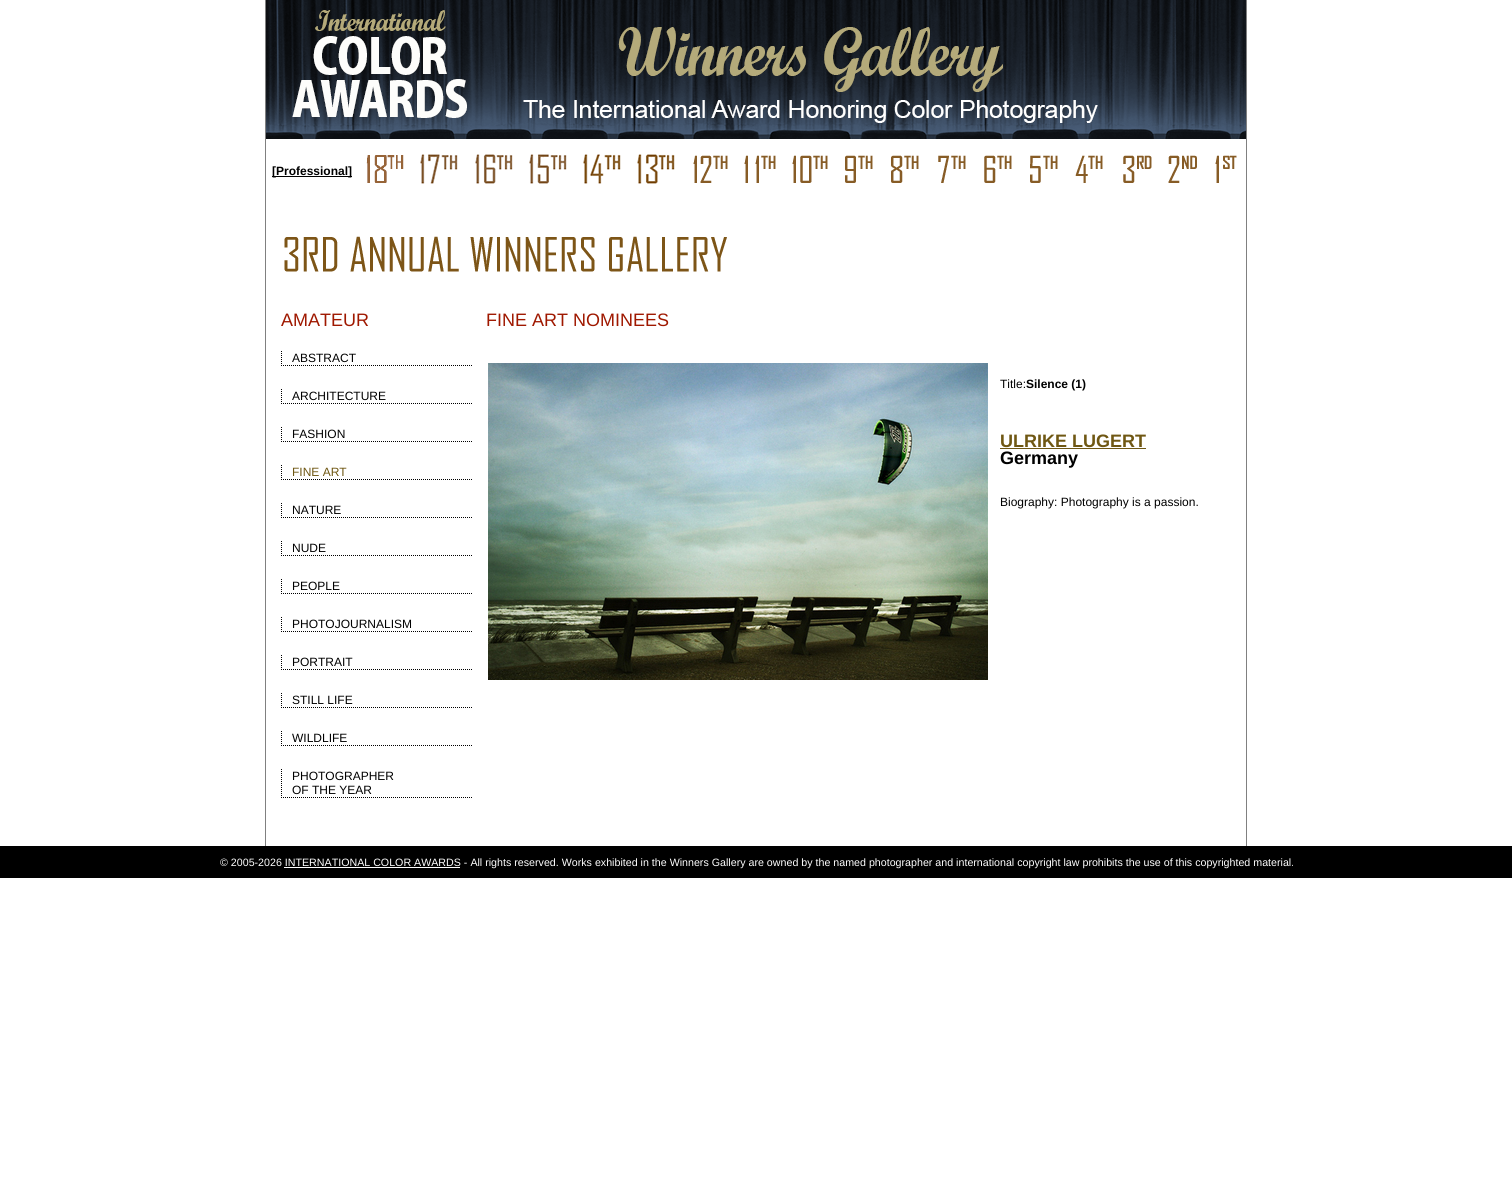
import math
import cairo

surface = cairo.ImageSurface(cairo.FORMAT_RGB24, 1512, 1199)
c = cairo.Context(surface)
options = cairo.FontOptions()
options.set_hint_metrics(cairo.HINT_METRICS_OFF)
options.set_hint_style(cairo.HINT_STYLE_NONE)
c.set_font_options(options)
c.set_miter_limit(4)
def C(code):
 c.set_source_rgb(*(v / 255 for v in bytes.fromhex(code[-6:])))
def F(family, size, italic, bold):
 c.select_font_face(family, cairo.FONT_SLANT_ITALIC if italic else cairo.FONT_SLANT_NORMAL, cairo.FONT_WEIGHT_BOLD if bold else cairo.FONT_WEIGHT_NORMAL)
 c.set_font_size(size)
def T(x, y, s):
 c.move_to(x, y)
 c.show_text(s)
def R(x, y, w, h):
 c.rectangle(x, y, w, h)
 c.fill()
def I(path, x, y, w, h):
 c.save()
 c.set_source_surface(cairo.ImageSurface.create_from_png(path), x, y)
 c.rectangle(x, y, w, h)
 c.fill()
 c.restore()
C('ffffff')
c.paint()
C('808080')
R(1246,0,1,846)
R(265,0,1,846)
I('1.png',266,0,980,139)
C('000000')
R(272,176,80,1)
F('Liberation Sans',12,0,1)
T(272,175,'[Professional]')
I('2.png',366,155,38,28)
I('3.png',420,154,38,30)
I('4.png',475,154,38,30)
I('5.png',529,154,38,30)
I('6.png',583,154,38,30)
I('7.png',637,154,38,30)
I('8.png',693,155,35,28)
I('9.png',744,155,32,28)
I('10.png',792,155,36,28)
I('11.png',845,155,28,28)
I('12.png',891,155,28,28)
I('13.png',938,155,28,28)
I('14.png',984,155,28,28)
I('15.png',1030,155,28,28)
I('16.png',1075,155,28,28)
I('17.png',1123,155,29,28)
I('18.png',1168,155,29,28)
I('19.png',1215,155,22,28)
I('20.png',284,236,443,36)
F('Liberation Sans',18,0,0)
C('9f1800')
T(281,326,'AMATEUR')
c.new_path()
c.move_to(281,365.5)
c.line_to(472,365.5)
C('000000')
c.set_line_width(1)
c.set_dash([1,1])
c.stroke()
c.new_path()
c.move_to(281.5,351)
c.line_to(281.5,366)
c.stroke()
F('Liberation Sans',12,0,0)
T(292,362,'ABSTRACT')
c.new_path()
c.move_to(281,403.5)
c.line_to(472,403.5)
c.stroke()
c.new_path()
c.move_to(281.5,389)
c.line_to(281.5,404)
c.stroke()
T(292,400,'ARCHITECTURE')
c.new_path()
c.move_to(281,441.5)
c.line_to(472,441.5)
c.stroke()
c.new_path()
c.move_to(281.5,427)
c.line_to(281.5,442)
c.stroke()
T(292,438,'FASHION')
c.new_path()
c.move_to(281,479.5)
c.line_to(472,479.5)
c.stroke()
c.new_path()
c.move_to(281.5,465)
c.line_to(281.5,480)
c.stroke()
C('6f5713')
T(292,476,'FINE ART')
c.new_path()
c.move_to(281,517.5)
c.line_to(472,517.5)
C('000000')
c.stroke()
c.new_path()
c.move_to(281.5,503)
c.line_to(281.5,518)
c.stroke()
T(292,514,'NATURE')
c.new_path()
c.move_to(281,555.5)
c.line_to(472,555.5)
c.stroke()
c.new_path()
c.move_to(281.5,541)
c.line_to(281.5,556)
c.stroke()
T(292,552,'NUDE')
c.new_path()
c.move_to(281,593.5)
c.line_to(472,593.5)
c.stroke()
c.new_path()
c.move_to(281.5,579)
c.line_to(281.5,594)
c.stroke()
T(292,590,'PEOPLE')
c.new_path()
c.move_to(281,631.5)
c.line_to(472,631.5)
c.stroke()
c.new_path()
c.move_to(281.5,617)
c.line_to(281.5,632)
c.stroke()
T(292,628,'PHOTOJOURNALISM')
c.new_path()
c.move_to(281,669.5)
c.line_to(472,669.5)
c.stroke()
c.new_path()
c.move_to(281.5,655)
c.line_to(281.5,670)
c.stroke()
T(292,666,'PORTRAIT')
c.new_path()
c.move_to(281,707.5)
c.line_to(472,707.5)
c.stroke()
c.new_path()
c.move_to(281.5,693)
c.line_to(281.5,708)
c.stroke()
T(292,704,'STILL LIFE')
c.new_path()
c.move_to(281,745.5)
c.line_to(472,745.5)
c.stroke()
c.new_path()
c.move_to(281.5,731)
c.line_to(281.5,746)
c.stroke()
T(292,742,'WILDLIFE')
c.new_path()
c.move_to(281,797.5)
c.line_to(472,797.5)
c.stroke()
c.new_path()
c.move_to(281.5,769)
c.line_to(281.5,798)
c.stroke()
T(292,780,'PHOTOGRAPHER')
T(292,794,'OF THE YEAR')
F('Liberation Sans',18,0,0)
C('9f1800')
T(486,326,'FINE ART NOMINEES')
I('21.png',488,363,500,317)
F('Liberation Sans',12,0,0)
C('000000')
T(1000,388,'Title:')
F('Liberation Sans',12,0,1)
T(1026,388,'Silence (1)')
F('Liberation Sans',18,0,1)
C('6f5713')
T(1000,447,'ULRIKE LUGERT')
R(1000,448,146,1)
C('000000')
T(1000,464,'Germany')
F('Liberation Sans',12,0,0)
T(1000,506,'Biography: Photography is a passion.')
R(0,846,1512,32)
F('Liberation Sans',10.67,0,0)
C('ffffff')
T(220,866,'© 2005-2026 INTERNATIONAL COLOR AWARDS - All rights reserved. Works exhibited in the Winners Gallery are owned by the named photographer and international copyright law prohibits the use of this copyrighted material.')
R(284,867,176,1)
surface.write_to_png('o.png')
